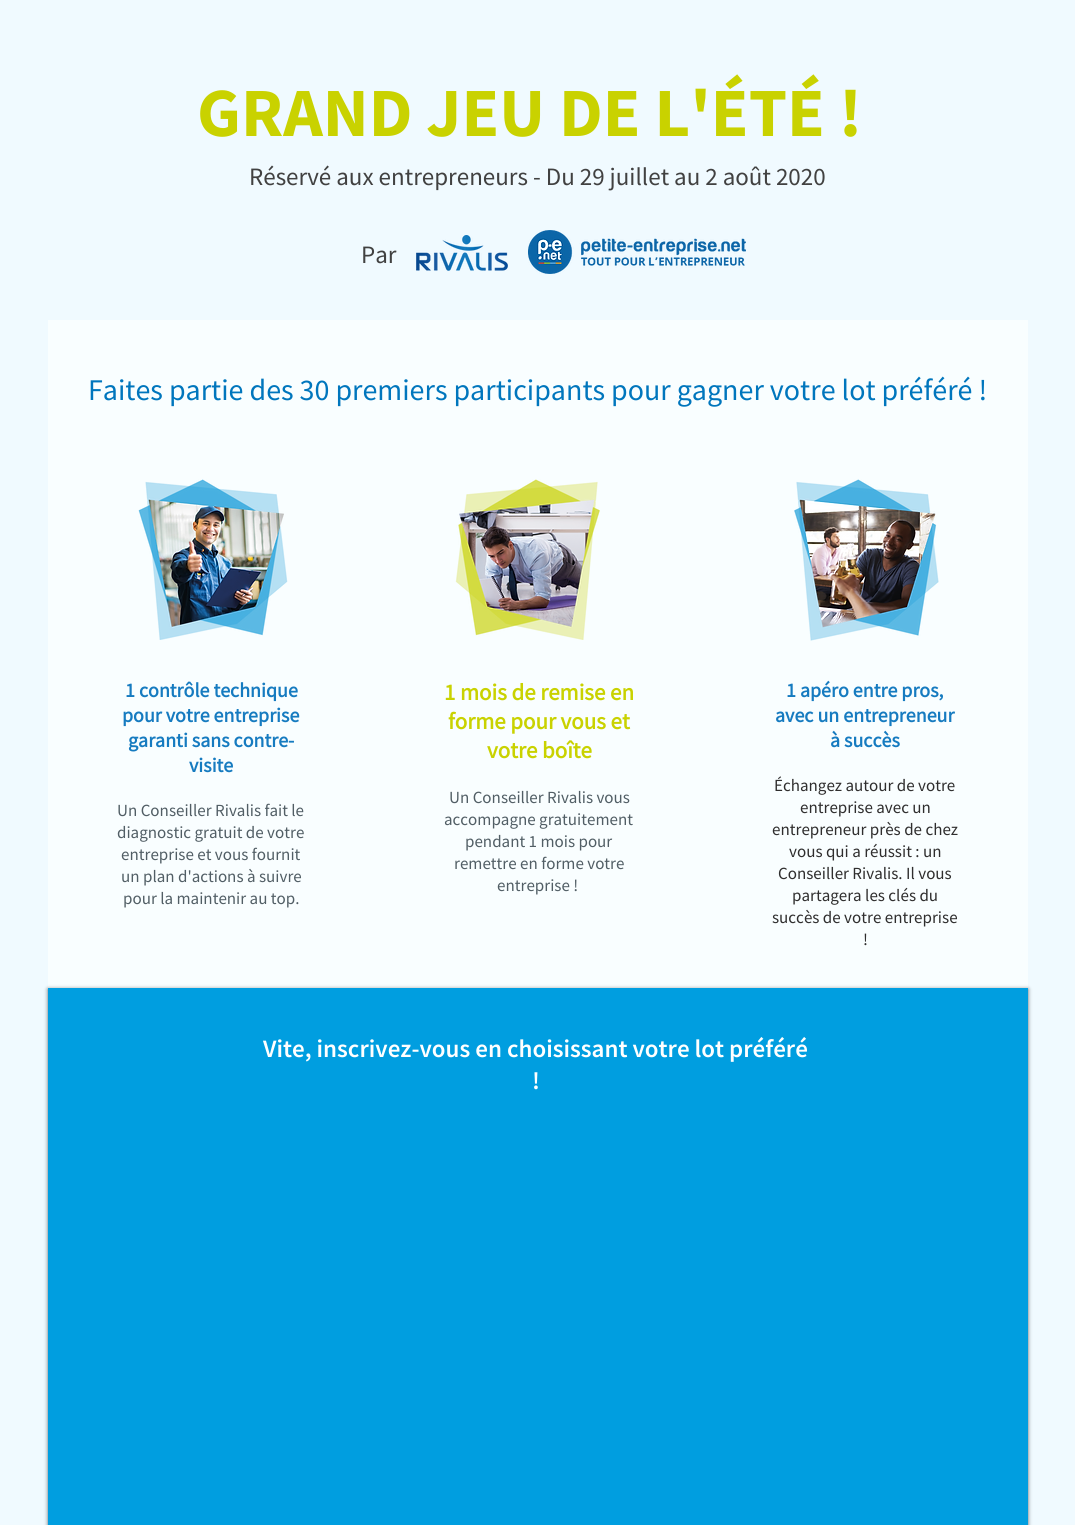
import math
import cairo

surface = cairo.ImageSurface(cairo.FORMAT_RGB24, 1075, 1525)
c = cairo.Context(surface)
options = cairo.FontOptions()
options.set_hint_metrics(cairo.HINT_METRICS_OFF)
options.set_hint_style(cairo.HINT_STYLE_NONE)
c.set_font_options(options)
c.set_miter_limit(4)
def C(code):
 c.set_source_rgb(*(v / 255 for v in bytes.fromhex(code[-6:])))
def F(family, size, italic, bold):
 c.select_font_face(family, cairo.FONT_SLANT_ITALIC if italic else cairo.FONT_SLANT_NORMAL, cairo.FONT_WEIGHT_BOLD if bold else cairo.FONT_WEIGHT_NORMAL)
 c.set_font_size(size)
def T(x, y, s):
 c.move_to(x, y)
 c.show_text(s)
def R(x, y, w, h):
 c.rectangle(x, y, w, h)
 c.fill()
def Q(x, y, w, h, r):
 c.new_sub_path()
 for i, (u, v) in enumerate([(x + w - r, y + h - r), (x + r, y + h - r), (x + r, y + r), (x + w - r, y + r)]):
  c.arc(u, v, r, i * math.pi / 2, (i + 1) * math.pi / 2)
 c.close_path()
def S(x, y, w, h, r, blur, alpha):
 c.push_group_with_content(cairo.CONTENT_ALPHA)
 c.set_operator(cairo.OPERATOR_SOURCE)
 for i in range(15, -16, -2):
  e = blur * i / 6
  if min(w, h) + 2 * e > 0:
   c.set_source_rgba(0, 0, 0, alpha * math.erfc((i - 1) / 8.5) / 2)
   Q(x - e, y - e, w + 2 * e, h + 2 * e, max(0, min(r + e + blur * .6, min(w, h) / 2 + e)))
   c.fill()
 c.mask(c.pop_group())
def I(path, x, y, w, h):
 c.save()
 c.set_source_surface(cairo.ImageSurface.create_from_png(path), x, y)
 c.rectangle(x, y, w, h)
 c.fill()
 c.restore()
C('f0faff')
c.paint()
F('Source Sans Pro',69,0,1)
C('c9d200')
T(197,136,'GRAND JEU DE L\'ÉTÉ !')
F('Source Sans Pro',25,0,0)
C('414141')
T(249,185,'Réservé aux entrepreneurs - Du 29 juillet au 2 août 2020')
T(361,263,'Par')
I('1.png',416,235,92,36)
I('2.png',528,230,218,44)
C('f9feff')
R(48,320,980,668)
F('Source Sans Pro',30,0,0)
C('0076bd')
T(88,400,'Faites partie des 30 premiers participants pour gagner votre lot préféré !')
C('000000')
S(48,989,980,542,0,2,.6)
C('009ee0')
R(48,988,980,537)
F('Source Sans Pro SemiBold',25,0,0)
C('ffffff')
T(263,1057,'Vite, inscrivez-vous en choisissant votre lot préféré')
T(532,1089,'!')
I('3.png',138,479,150,161)
F('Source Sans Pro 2',20,0,1)
C('167bc0')
T(125,697,'1 contrôle technique')
T(122,722,'pour votre entreprise')
T(128,747,'garanti sans contre-')
T(189,772,'visite')
F('Source Sans Pro',17,0,0)
C('515e65')
T(117,816,'Un Conseiller Rivalis fait le')
T(117,838,'diagnostic gratuit de votre')
T(121,860,'entreprise et vous fournit')
T(121,882,'un plan d\'actions à suivre')
T(123,904,'pour la maintenir au top.')
I('4.png',455,479,145,161)
F('Source Sans Pro 2',23,0,1)
C('c9d200')
T(444,700,'1 mois de remise en')
T(448,729,'forme pour vous et')
T(487,758,'votre boîte')
F('Source Sans Pro',17,0,0)
C('515e65')
T(449,803,'Un Conseiller Rivalis vous')
T(444,825,'accompagne gratuitement')
T(465,847,'pendant 1 mois pour')
T(454,869,'remettre en forme votre')
T(497,891,'entreprise !')
I('5.png',794,479,145,162)
F('Source Sans Pro 2',20,0,1)
C('167bc0')
T(786,697,'1 apéro entre pros,')
T(775,722,'avec un entrepreneur')
T(830,747,'à succès')
F('Source Sans Pro',17,0,0)
C('2f2e2e')
T(774,791,'Échangez autour de votre')
T(800,813,'entreprise avec un')
T(772,835,'entrepreneur près de chez')
T(789,857,'vous qui a réussit : un')
T(778,879,'Conseiller Rivalis. Il vous')
T(792,901,'partagera les clés du')
T(772,923,'succès de votre entreprise')
T(863,945,'!')
surface.write_to_png('o.png')
